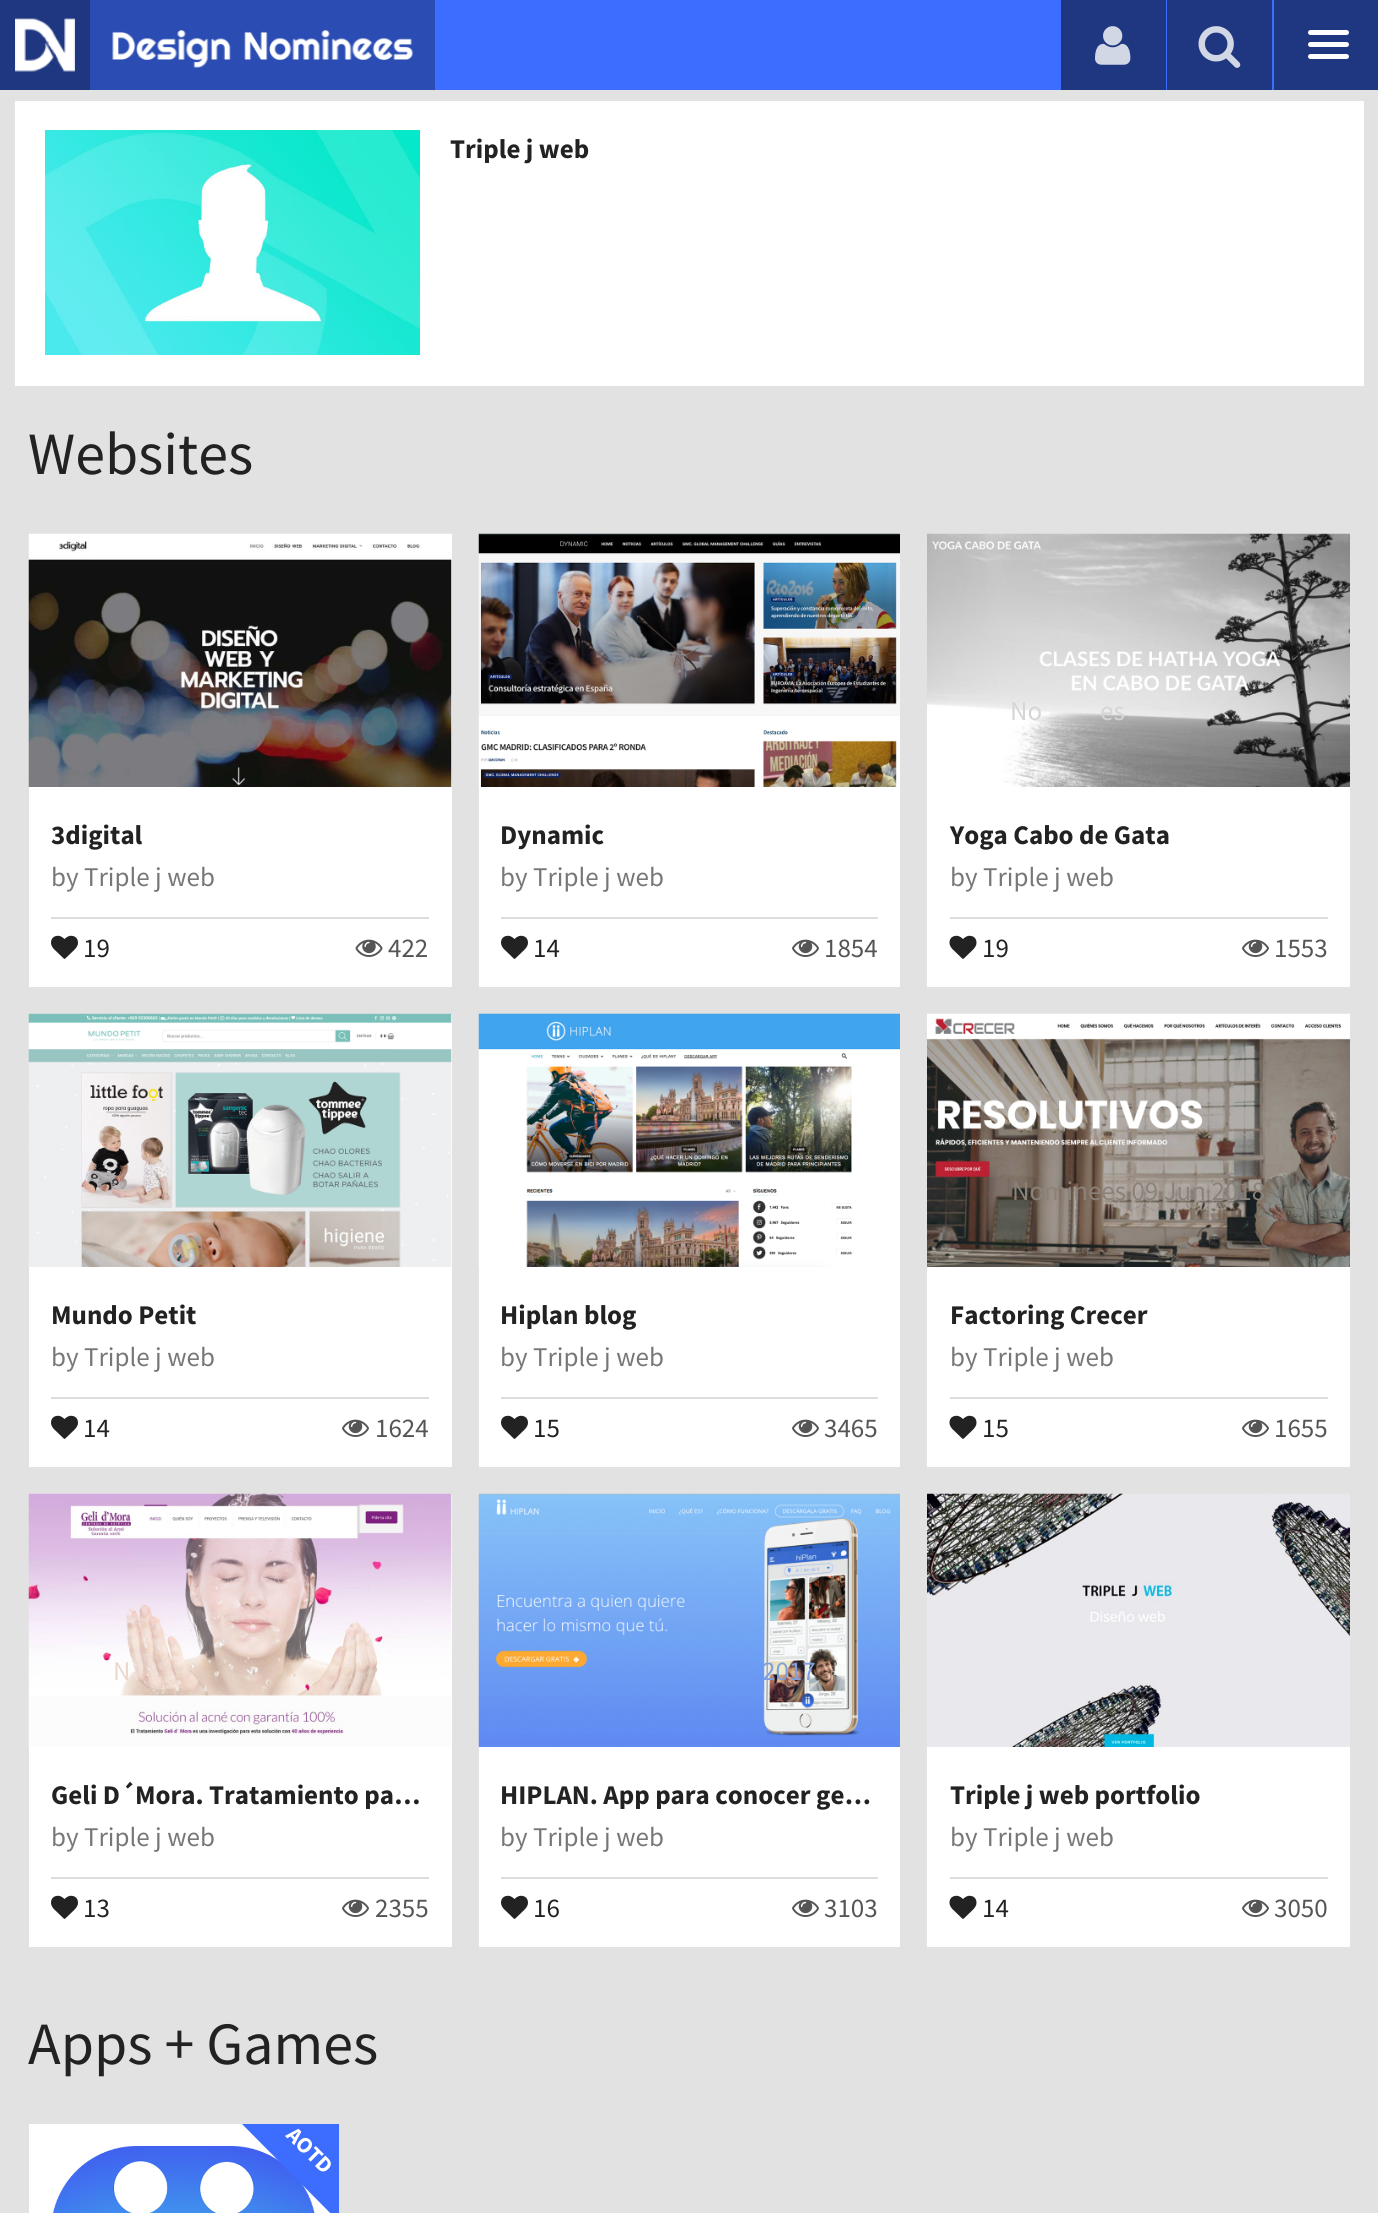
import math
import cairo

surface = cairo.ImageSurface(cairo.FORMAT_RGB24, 1378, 2213)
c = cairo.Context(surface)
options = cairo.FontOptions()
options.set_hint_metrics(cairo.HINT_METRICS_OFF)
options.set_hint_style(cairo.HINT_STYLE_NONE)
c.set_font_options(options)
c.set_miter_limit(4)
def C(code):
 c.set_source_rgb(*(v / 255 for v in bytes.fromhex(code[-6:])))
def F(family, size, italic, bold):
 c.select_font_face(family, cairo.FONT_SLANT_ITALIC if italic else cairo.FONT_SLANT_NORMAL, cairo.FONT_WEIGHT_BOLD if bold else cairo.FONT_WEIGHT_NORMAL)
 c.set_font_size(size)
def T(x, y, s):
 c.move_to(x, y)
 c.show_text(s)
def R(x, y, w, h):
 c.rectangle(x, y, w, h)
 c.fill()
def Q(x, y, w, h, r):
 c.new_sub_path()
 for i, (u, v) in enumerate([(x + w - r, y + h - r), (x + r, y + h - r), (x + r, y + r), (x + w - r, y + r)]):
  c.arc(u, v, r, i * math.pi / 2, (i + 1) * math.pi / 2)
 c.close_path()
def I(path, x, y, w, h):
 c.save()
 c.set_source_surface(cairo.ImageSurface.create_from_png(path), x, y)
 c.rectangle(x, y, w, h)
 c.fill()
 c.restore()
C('e2e2e2')
c.paint()
C('3d6dff')
R(435,0,839,90)
C('1f3780')
R(0,0,90,90)
I('1.png',15,18,60,54)
C('2b4cb3')
R(90,0,345,90)
I('2.png',112,30,301,38)
C('1f3780')
R(1061,0,105,90)
I('3.png',1095,26,36,39)
R(1167,0,105,90)
I('4.png',1198,26,43,42)
R(1274,0,104,90)
C('ffffff')
Q(1308,30,41,5,2.5)
c.fill()
Q(1308,42,41,5,2.5)
c.fill()
Q(1308,54,41,5,2.5)
c.fill()
R(15,101,1349,285)
I('5.png',45,130,375,225)
F('Source Sans Pro',27,0,1)
C('222222')
T(450,158,'Triple j web')
F('Source Sans Pro',60,0,0)
T(28,474,'Websites')
C('ffffff')
R(29,534,423,453)
I('6.png',28,533,424,254)
F('Source Sans Pro',27,0,1)
C('222222')
T(51,844,'3digital')
F('Source Sans Pro',27,0,0)
C('777777')
T(51,886,'by Triple j web')
C('dddddd')
R(51,917,378,2)
I('7.png',51,935,27,24)
C('222222')
T(83,957,'19')
I('8.png',355,939,28,18)
C('555555')
T(388,957,'422')
C('ffffff')
R(479,787,421,200)
I('9.png',478,533,422,254)
F('Source Sans Pro',27,0,1)
C('222222')
T(500,844,'Dynamic')
F('Source Sans Pro',27,0,0)
C('777777')
T(500,886,'by Triple j web')
C('dddddd')
R(501,917,377,2)
I('7.png',501,935,27,24)
C('222222')
T(533,957,'14')
I('10.png',792,939,27,18)
C('555555')
T(824,957,'1854')
C('ffffff')
R(927,787,423,200)
I('11.png',927,533,423,254)
C('d5d5d5')
T(1010,720,'No')
T(1100,720,'es')
F('Source Sans Pro',27,0,1)
C('222222')
T(950,844,'Yoga Cabo de Gata')
F('Source Sans Pro',27,0,0)
C('777777')
T(950,886,'by Triple j web')
C('dddddd')
R(950,917,378,2)
I('12.png',949,935,28,24)
C('222222')
T(982,957,'19')
I('10.png',1242,939,27,18)
C('555555')
T(1274,957,'1553')
C('ffffff')
R(29,1014,423,453)
I('13.png',28,1013,424,254)
F('Source Sans Pro',27,0,1)
C('222222')
T(51,1324,'Mundo Petit')
F('Source Sans Pro',27,0,0)
C('777777')
T(51,1366,'by Triple j web')
C('dddddd')
R(51,1397,378,2)
I('7.png',51,1415,27,24)
C('222222')
T(83,1437,'14')
I('10.png',342,1419,27,18)
C('555555')
T(375,1437,'1624')
C('ffffff')
R(479,1267,421,200)
I('14.png',478,1013,422,254)
F('Source Sans Pro',27,0,1)
C('222222')
T(500,1324,'Hiplan blog')
F('Source Sans Pro',27,0,0)
C('777777')
T(500,1366,'by Triple j web')
C('dddddd')
R(501,1397,377,2)
I('7.png',501,1415,27,24)
C('222222')
T(533,1437,'15')
I('10.png',792,1419,27,18)
C('555555')
T(824,1437,'3465')
C('ffffff')
R(927,1267,423,200)
I('15.png',927,1013,423,254)
C('8b827a')
T(1012,1200,'Nominees 09 Jun 2018')
F('Source Sans Pro',27,0,1)
C('222222')
T(950,1324,'Factoring Crecer')
F('Source Sans Pro',27,0,0)
C('777777')
T(950,1366,'by Triple j web')
C('dddddd')
R(950,1397,378,2)
I('12.png',949,1415,28,24)
C('222222')
T(982,1437,'15')
I('10.png',1242,1419,27,18)
C('555555')
T(1274,1437,'1655')
C('ffffff')
R(29,1494,423,453)
I('16.png',28,1493,424,254)
C('ebd8cd')
T(113,1680,'N')
F('Source Sans Pro',27,0,1)
C('222222')
T(51,1804,'Geli D´Mora. Tratamiento pa…')
F('Source Sans Pro',27,0,0)
C('777777')
T(51,1846,'by Triple j web')
C('dddddd')
R(51,1877,378,2)
I('7.png',51,1895,27,24)
C('222222')
T(83,1917,'13')
I('10.png',342,1899,27,18)
C('555555')
T(375,1917,'2355')
C('ffffff')
R(479,1747,421,200)
I('17.png',478,1493,422,254)
C('809fdd')
T(762,1680,'2017')
F('Source Sans Pro',27,0,1)
C('222222')
T(500,1804,'HIPLAN. App para conocer ge…')
F('Source Sans Pro',27,0,0)
C('777777')
T(500,1846,'by Triple j web')
C('dddddd')
R(501,1877,377,2)
I('7.png',501,1895,27,24)
C('222222')
T(533,1917,'16')
I('10.png',792,1899,27,18)
C('555555')
T(824,1917,'3103')
C('ffffff')
R(927,1747,423,200)
I('18.png',927,1493,423,254)
F('Source Sans Pro',27,0,1)
C('222222')
T(950,1804,'Triple j web portfolio')
F('Source Sans Pro',27,0,0)
C('777777')
T(950,1846,'by Triple j web')
C('dddddd')
R(950,1877,378,2)
I('12.png',949,1895,28,24)
C('222222')
T(982,1917,'14')
I('10.png',1242,1899,27,18)
C('555555')
T(1274,1917,'3050')
F('Source Sans Pro',60,0,0)
C('222222')
T(28,2064,'Apps + Games')
C('ffffff')
R(29,2124,302,89)
I('19.png',52,2146,263,67)
c.save()
c.rectangle(29,2124,310,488)
c.clip()
C('3d6dff')
c.new_path()
c.move_to(291,2069)
c.line_to(397,2176)
c.line_to(345,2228)
c.line_to(239,2121)
c.close_path()
c.fill()
c.restore()
F('Source Sans Pro',22.5,0,1)
c.save()
c.translate(285,2136)
c.rotate(45 * math.pi / 180)
T(0,0,'AOTD')
c.restore()
surface.write_to_png('o.png')
